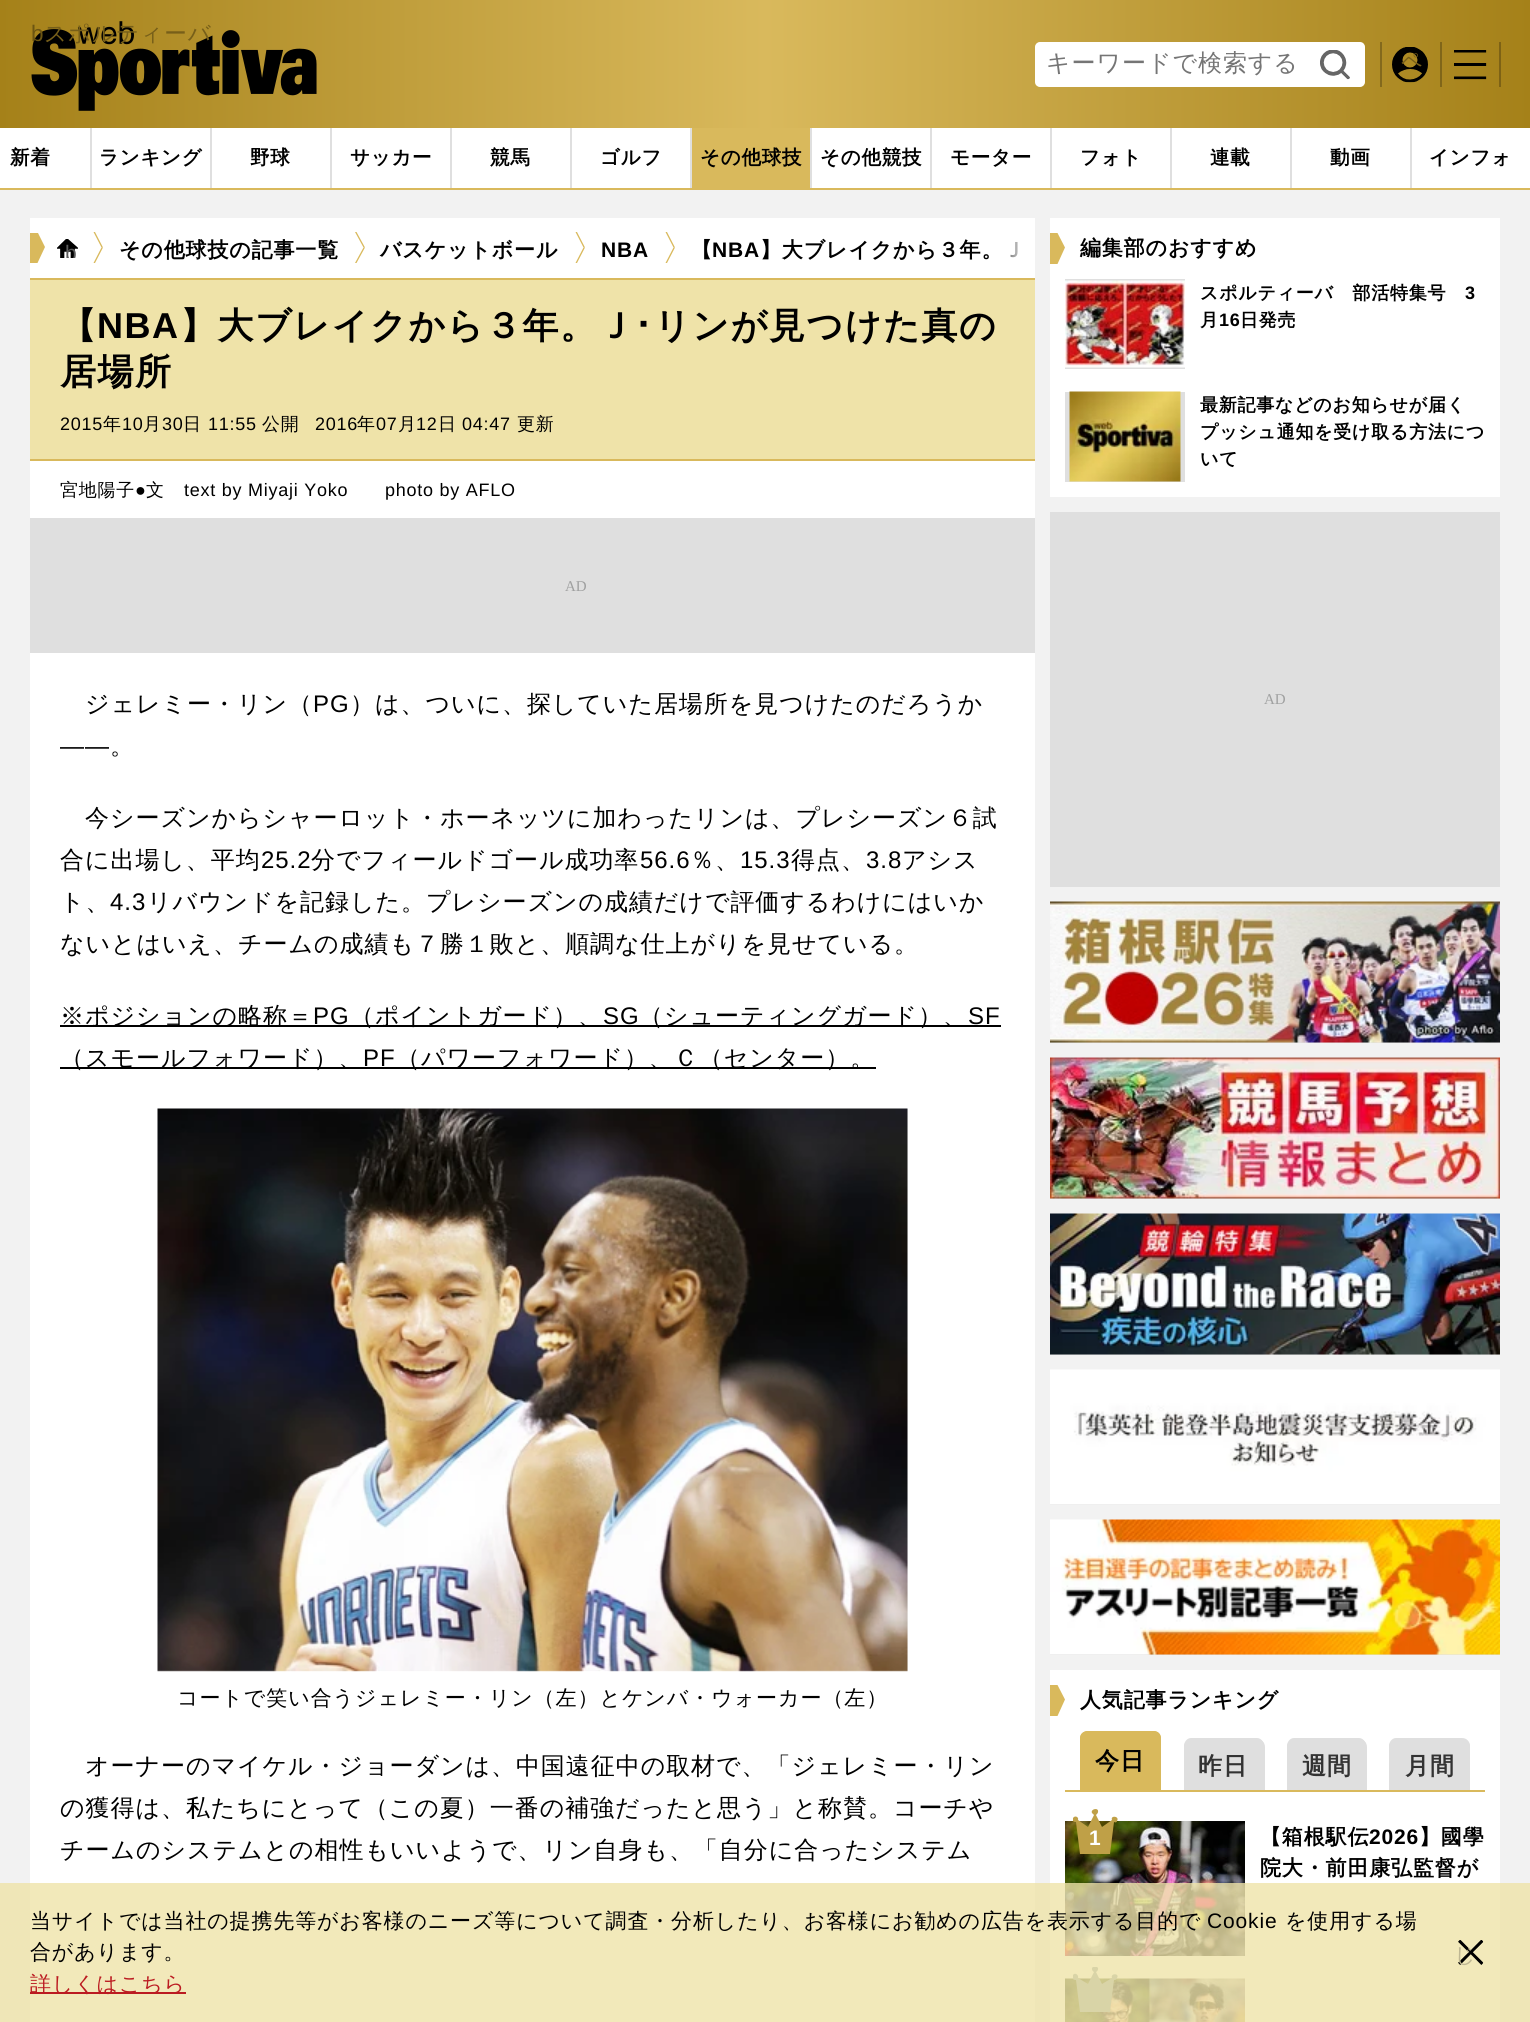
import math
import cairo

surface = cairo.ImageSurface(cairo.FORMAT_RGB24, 1530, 2022)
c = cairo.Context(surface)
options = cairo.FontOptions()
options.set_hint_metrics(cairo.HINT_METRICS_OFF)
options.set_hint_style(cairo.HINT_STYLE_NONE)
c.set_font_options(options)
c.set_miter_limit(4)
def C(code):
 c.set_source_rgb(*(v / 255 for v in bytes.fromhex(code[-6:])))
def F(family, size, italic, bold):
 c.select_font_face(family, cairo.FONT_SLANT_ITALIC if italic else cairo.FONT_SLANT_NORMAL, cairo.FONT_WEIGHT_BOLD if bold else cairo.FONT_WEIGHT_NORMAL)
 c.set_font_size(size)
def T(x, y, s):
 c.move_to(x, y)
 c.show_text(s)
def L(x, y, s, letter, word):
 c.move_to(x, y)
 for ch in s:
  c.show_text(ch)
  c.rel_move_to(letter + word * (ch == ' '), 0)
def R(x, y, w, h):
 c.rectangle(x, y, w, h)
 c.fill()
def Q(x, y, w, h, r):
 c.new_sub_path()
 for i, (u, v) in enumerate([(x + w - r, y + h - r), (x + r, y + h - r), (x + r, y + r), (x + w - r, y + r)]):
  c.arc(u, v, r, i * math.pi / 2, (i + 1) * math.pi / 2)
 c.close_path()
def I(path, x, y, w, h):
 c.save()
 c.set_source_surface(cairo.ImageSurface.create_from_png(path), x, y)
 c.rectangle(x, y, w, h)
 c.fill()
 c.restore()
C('f2f2f2')
c.paint()
C('ffffff')
R(0,128,1530,60)
gradient = cairo.LinearGradient(0,64,1530,64)
gradient.add_color_stop_rgba(0,0.647,0.506,0.098,1)
gradient.add_color_stop_rgba(.5,0.851,0.725,0.361,1)
gradient.add_color_stop_rgba(1,0.647,0.506,0.098,1)
c.set_source(gradient)
R(0,0,1530,128)
I('1.png',31,21,286,90)
F('Liberation Sans',22.5,0,0)
C('6c5512')
L(31,41,'b',1,0)
F('WenQuanYi Zen Hei Medium',22.5,0,0)
C('775f19')
L(44,41,'スポルティーバ',1,0)
C('ffffff')
Q(1036,43,328,43,4)
c.fill_preserve()
c.stroke()
F('WenQuanYi Zen Hei Medium',24,0,0)
C('757575')
L(1046,71,'キーワードで検索する',.95,0)
I('2.png',1320,50,30,30)
C('83691d')
R(1380,42,2,45)
I('3.png',1392,47,36,36)
F('WenQuanYi Zen Hei Medium',21,0,0)
C('775f19')
L(1401,68,'ペ',.85,0)
C('806619')
R(1440,42,2,45)
I('4.png',1454,50,33,30)
C('7d6215')
R(1499,42,2,45)
F('WenQuanYi Zen Hei',19.5,0,1)
C('000000')
L(10,164,'新着',.75,0)
C('dfdfdf')
R(90,128,2,60)
C('000000')
L(99,164,'ランキング',.75,0)
C('dfdfdf')
R(210,128,2,60)
C('000000')
L(250,164,'野球',.75,0)
C('dfdfdf')
R(330,128,2,60)
C('000000')
L(350,164,'サッカー',.75,0)
C('dfdfdf')
R(450,128,2,60)
C('000000')
L(490,164,'競馬',.75,0)
C('dfdfdf')
R(570,128,2,60)
C('000000')
L(600,164,'ゴルフ',.75,0)
C('dfdfdf')
R(690,128,2,60)
C('d9b95c')
R(692,128,118,60)
C('000000')
L(700,164,'その他球技',.75,0)
C('dfdfdf')
R(810,128,2,60)
C('000000')
L(820,164,'その他競技',.75,0)
C('dfdfdf')
R(930,128,2,60)
C('000000')
L(950,164,'モーター',.75,0)
C('dfdfdf')
R(1050,128,2,60)
C('000000')
L(1080,164,'フォト',.75,0)
C('dfdfdf')
R(1170,128,2,60)
C('000000')
L(1210,164,'連載',.75,0)
C('dfdfdf')
R(1290,128,2,60)
C('000000')
L(1330,164,'動画',.75,0)
C('dfdfdf')
R(1410,128,2,60)
C('000000')
L(1429,164,'インフォ',.75,0)
C('d9b95c')
R(0,188,1530,2)
C('ffffff')
R(30,461,1005,1561)
R(1050,1670,450,352)
I('15.png',1065,1821,180,135)
I('16.png',1065,1978,180,44)
C('84959e')
c.new_path()
c.move_to(1114,1980)
c.curve_to(1116,1980,1117,1979,1117,1978)
c.curve_to(1120,1973,1110,1973,1112,1978)
c.line_to(1102,1984)
c.line_to(1096,1972)
c.curve_to(1098,1971,1099,1968,1097,1967)
c.line_to(1093,1967)
c.curve_to(1091,1968,1092,1971,1094,1972)
c.line_to(1088,1984)
c.line_to(1078,1978)
c.curve_to(1079,1975,1075,1972,1073,1975)
c.line_to(1073,1979)
c.curve_to(1074,1980,1075,1980,1076,1980)
c.line_to(1080,2012)
c.line_to(1110,2012)
c.close_path()
c.fill()
c.set_source_rgba(0.937,0.89,0.663,0.8)
R(0,1883,1530,139)
F('WenQuanYi Zen Hei Medium',21,0,0)
C('000000')
L(30,1928,'当サイトでは当社の提携先等がお客様のニーズ等について調査・分析したり、お客様にお勧めの広告を表⽰する⽬的で',.85,0)
F('Liberation Sans',21,0,0)
L(1207,1928,'Cookie',.85,0)
F('WenQuanYi Zen Hei Medium',21,0,0)
L(1285,1928,'を使⽤する場',.85,0)
L(30,1959,'合があります。',.85,0)
C('bb1b21')
R(30,1992,156,2)
L(30,1991,'詳しくはこちら',.85,0)
I('5.png',1458,1940,26,25)
C('bfb793')
L(1454,1962,'じ',.85,0)
C('ffffff')
R(30,218,998,60)
C('d9b95c')
c.new_path()
c.move_to(30,233)
c.line_to(30,263)
c.line_to(37.5,263)
c.line_to(45,247)
c.line_to(38,233)
c.close_path()
c.fill()
I('6.png',57,239,21,19)
c.save()
c.rectangle(57,239,21,19)
c.clip()
F('Liberation Sans',21,0,0)
C('5b5b5b')
L(65,260,'b',.85,0)
c.restore()
c.new_path()
c.move_to(93.5,232)
c.line_to(95,232)
c.line_to(103,247.5)
c.line_to(101.5,247.5)
c.close_path()
c.fill()
F('WenQuanYi Zen Hei',21,0,1)
C('000000')
L(119,257,'その他球技の記事一覧',.85,0)
C('d9b95c')
c.new_path()
c.move_to(101.5,247.5)
c.line_to(103,247.5)
c.line_to(95,263)
c.line_to(93.5,263)
c.close_path()
c.fill()
c.new_path()
c.move_to(355,232)
c.line_to(356.5,232)
c.line_to(365,247.5)
c.line_to(363.5,247.5)
c.close_path()
c.fill()
C('000000')
L(380,257,'バスケットボール',.85,0)
C('d9b95c')
c.new_path()
c.move_to(363.5,247.5)
c.line_to(365,247.5)
c.line_to(356.5,263)
c.line_to(355,263)
c.close_path()
c.fill()
c.new_path()
c.move_to(575.5,232)
c.line_to(577,232)
c.line_to(585,247.5)
c.line_to(583.5,247.5)
c.close_path()
c.fill()
c.new_path()
c.move_to(583.5,247.5)
c.line_to(585,247.5)
c.line_to(577,263)
c.line_to(575.5,263)
c.close_path()
c.fill()
F('Liberation Sans',21,0,1)
C('000000')
L(601,257,'NBA',.85,0)
C('d9b95c')
c.new_path()
c.move_to(665.5,232)
c.line_to(667,232)
c.line_to(675,247.5)
c.line_to(673.5,247.5)
c.close_path()
c.fill()
F('WenQuanYi Zen Hei',21,0,1)
C('000000')
L(691,257,'【',.85,0)
F('Liberation Sans',21,0,1)
L(712,257,'NBA',.85,0)
F('WenQuanYi Zen Hei',21,0,1)
L(760,257,'】大ブレイクから３年。Ｊ',.85,0)
C('d9b95c')
c.new_path()
c.move_to(673.5,247.5)
c.line_to(675,247.5)
c.line_to(667,263)
c.line_to(665.5,263)
c.close_path()
c.fill()
gradient = cairo.LinearGradient(990,248,1035,248)
gradient.add_color_stop_rgba(0,1,1,1,0)
gradient.add_color_stop_rgba(.85,1,1,1,1)
gradient.add_color_stop_rgba(1,1,1,1,1)
c.set_source(gradient)
R(1010,218,25,60)
C('efe3a9')
R(30,280,1005,179)
C('d9b95c')
R(30,278,1005,2)
R(30,459,1005,2)
F('WenQuanYi Zen Hei',36,0,1)
C('000000')
L(60,338,'【',1.5,0)
F('Liberation Sans',36,0,1)
L(97,338,'NBA',1.5,0)
F('WenQuanYi Zen Hei',36,0,1)
L(180,338,'】大ブレイクから３年。Ｊ',1.5,0)
F('IPAPGothic',36,0,1)
L(634,338,'･',1.5,0)
F('WenQuanYi Zen Hei',36,0,1)
L(654,338,'リンが見つけた真の',1.5,0)
L(60,384,'居場所',1.5,0)
F('Liberation Sans',18,0,0)
L(60,430,'2015',.75,0)
F('WenQuanYi Zen Hei Medium',18,0,0)
L(103,430,'年',.75,0)
F('Liberation Sans',18,0,0)
L(122,430,'10',.75,0)
F('WenQuanYi Zen Hei Medium',18,0,0)
L(143,430,'月',.75,0)
F('Liberation Sans',18,0,0)
L(162,430,'30',.75,0)
F('WenQuanYi Zen Hei Medium',18,0,0)
L(183,430,'日',.75,0)
F('Liberation Sans',18,0,0)
L(208,430,'11:55',.75,0)
F('WenQuanYi Zen Hei Medium',18,0,0)
L(262,430,'公開',.75,0)
F('Liberation Sans',18,0,0)
L(315,430,'2016',.75,0)
F('WenQuanYi Zen Hei Medium',18,0,0)
L(357,430,'年',.75,0)
F('Liberation Sans',18,0,0)
L(376,430,'07',.75,0)
F('WenQuanYi Zen Hei Medium',18,0,0)
L(398,430,'月',.75,0)
F('Liberation Sans',18,0,0)
L(416,430,'12',.75,0)
F('WenQuanYi Zen Hei Medium',18,0,0)
L(438,430,'日',.75,0)
F('Liberation Sans',18,0,0)
L(462,430,'04:47',.75,0)
F('WenQuanYi Zen Hei Medium',18,0,0)
L(517,430,'更新',.75,0)
L(60,496,'宮地陽子',.75,0)
F('Liberation Sans',18,0,0)
L(135,496,'●',.75,0)
F('WenQuanYi Zen Hei Medium',18,0,0)
L(146,496,'文',.75,0)
F('Liberation Sans',18,0,0)
L(184,496,'text by Miyaji Yoko',.75,0)
L(385,496,'photo by AFLO',.75,0)
C('dfdfdf')
R(30,518,1005,135)
F('Liberation Serif',15,0,0)
C('9fa0a0')
T(565,591,'AD')
F('WenQuanYi Zen Hei Medium',24,0,0)
C('000000')
L(85,712,'ジェレミー・リン（',.95,0)
F('Liberation Sans',24,0,0)
L(313,712,'PG',.95,0)
F('WenQuanYi Zen Hei Medium',24,0,0)
L(350,712,'）は、ついに、探していた居場所を見つけたのだろうか',.95,0)
F('Liberation Sans',24,0,0)
L(60,754,'――',.95,0)
F('WenQuanYi Zen Hei Medium',24,0,0)
L(110,754,'。',.95,0)
L(85,826,'今シーズンからシャーロット・ホーネッツに加わったリンは、プレシーズン６試',.95,0)
L(60,868,'合に出場し、平均',.95,0)
F('Liberation Sans',24,0,0)
L(261,868,'25.2',.95,0)
F('WenQuanYi Zen Hei Medium',24,0,0)
L(311,868,'分でフィールドゴール成功率',.95,0)
F('Liberation Sans',24,0,0)
L(640,868,'56.6',.95,0)
F('WenQuanYi Zen Hei Medium',24,0,0)
L(690,868,'％、',.95,0)
F('Liberation Sans',24,0,0)
L(740,868,'15.3',.95,0)
F('WenQuanYi Zen Hei Medium',24,0,0)
L(791,868,'得点、',.95,0)
F('Liberation Sans',24,0,0)
L(866,868,'3.8',.95,0)
F('WenQuanYi Zen Hei Medium',24,0,0)
L(902,868,'アシス',.95,0)
L(60,910,'ト、',.95,0)
F('Liberation Sans',24,0,0)
L(110,910,'4.3',.95,0)
F('WenQuanYi Zen Hei Medium',24,0,0)
L(147,910,'リバウンドを記録した。プレシーズンの成績だけで評価するわけにはいか',.95,0)
L(60,952,'ないとはいえ、チームの成績も７勝１敗と、順調な仕上がりを見せている。',.95,0)
R(60,1025,941,2)
L(60,1024,'※ポジションの略称＝',.95,0)
F('Liberation Sans',24,0,0)
L(313,1024,'PG',.95,0)
F('WenQuanYi Zen Hei Medium',24,0,0)
L(350,1024,'（ポイントガード）、',.95,0)
F('Liberation Sans',24,0,0)
L(603,1024,'SG',.95,0)
F('WenQuanYi Zen Hei Medium',24,0,0)
L(639,1024,'（シューティングガード）、',.95,0)
F('Liberation Sans',24,0,0)
L(968,1024,'SF',.95,0)
R(60,1067,816,2)
F('WenQuanYi Zen Hei Medium',24,0,0)
L(60,1066,'（スモールフォワード）、',.95,0)
F('Liberation Sans',24,0,0)
L(363,1066,'PF',.95,0)
F('WenQuanYi Zen Hei Medium',24,0,0)
L(396,1066,'（パワーフォワード）、Ｃ（センター）。',.95,0)
C('f2f2f2')
R(158,1109,750,562)
I('7.png',157,1108,751,564)
F('WenQuanYi Zen Hei Medium',21,0,0)
C('000000')
L(177,1705,'コートで笑い合うジェレミー・リン（左）とケンバ・ウォーカー（左）',.95,0)
F('WenQuanYi Zen Hei Medium',24,0,0)
L(85,1774,'オーナーのマイケル・ジョーダンは、中国遠征中の取材で、「ジェレミー・リン',.95,0)
L(60,1816,'の獲得は、私たちにとって（この夏）一番の補強だったと思う」と称賛。コーチや',.95,0)
L(60,1858,'チームのシステムとの相性もいいようで、リン自身も、「自分に合ったシステム',.95,0)
C('ffffff')
R(1050,218,450,279)
C('d9b95c')
c.new_path()
c.move_to(1050,233)
c.line_to(1050,264)
c.line_to(1057.5,264)
c.line_to(1065,247.5)
c.line_to(1057.5,233)
c.close_path()
c.fill()
F('WenQuanYi Zen Hei',21,0,1)
C('000000')
L(1080,255,'編集部のおすすめ',.85,0)
C('dfdfdf')
R(1065,279,120,90)
I('8.png',1065,280,120,88)
F('WenQuanYi Zen Hei',18,0,1)
C('000000')
L(1200,299,'スポルティーバ　部活特集号',.75,0)
F('Liberation Sans',18,0,1)
L(1465,299,'3',.75,0)
F('WenQuanYi Zen Hei',18,0,1)
L(1200,326,'月',.75,0)
F('Liberation Sans',18,0,1)
L(1219,326,'16',.75,0)
F('WenQuanYi Zen Hei',18,0,1)
L(1240,326,'日発売',.75,0)
C('dfdfdf')
R(1065,392,120,90)
I('9.png',1069,391,112,91)
C('000000')
L(1200,411,'最新記事などのお知らせが届く',.75,0)
L(1200,438,'プッシュ通知を受け取る方法につ',.75,0)
L(1200,465,'いて',.75,0)
C('dfdfdf')
R(1050,512,450,375)
F('Liberation Serif',15,0,0)
C('9fa0a0')
T(1264,704,'AD')
C('dfdfdf')
R(1050,1042,450,1)
I('10.png',1050,901,450,142)
R(1050,1198,450,1)
I('11.png',1050,1057,450,142)
R(1050,1354,450,1)
I('12.png',1050,1213,450,142)
R(1050,1504,450,1)
I('13.png',1050,1369,450,136)
R(1050,1654,450,1)
I('14.png',1050,1519,450,136)
C('d9b95c')
c.new_path()
c.move_to(1050,1685)
c.line_to(1050,1716)
c.line_to(1057.5,1716)
c.line_to(1065,1699.5)
c.line_to(1057.5,1685)
c.close_path()
c.fill()
F('WenQuanYi Zen Hei',21,0,1)
C('000000')
L(1080,1707,'人気記事ランキング',.85,0)
C('d9b95c')
c.new_path()
c.move_to(1088,1731)
c.line_to(1153,1731)
c.curve_to(1157.5,1731,1161,1734.5,1161,1739)
c.line_to(1161,1791)
c.line_to(1080,1791)
c.line_to(1080,1739)
c.curve_to(1080,1734.5,1083.5,1731,1088,1731)
c.close_path()
c.fill()
c.set_fill_rule(cairo.FILL_RULE_EVEN_ODD)
c.new_path()
c.move_to(1088,1731)
c.line_to(1154,1731)
c.curve_to(1158,1731,1161,1734,1161,1738)
c.line_to(1161,1791)
c.line_to(1080,1791)
c.line_to(1080,1738)
c.curve_to(1080,1734,1083,1731,1088,1731)
c.close_path()
c.move_to(1088,1732)
c.line_to(1154,1732)
c.curve_to(1157,1732,1160,1735,1160,1738)
c.line_to(1160,1791)
c.line_to(1082,1791)
c.line_to(1082,1738)
c.curve_to(1082,1735,1084,1732,1088,1732)
c.close_path()
c.fill()
F('WenQuanYi Zen Hei',24,0,1)
C('000000')
L(1095,1769,'今日',.95,0)
C('dfdfdf')
c.new_path()
c.move_to(1192,1739)
c.line_to(1257,1739)
c.curve_to(1261.5,1739,1265,1742.5,1265,1747)
c.line_to(1265,1791)
c.line_to(1184,1791)
c.line_to(1184,1747)
c.curve_to(1184,1742.5,1187.5,1739,1192,1739)
c.close_path()
c.fill()
c.new_path()
c.move_to(1191,1738)
c.line_to(1257,1738)
c.curve_to(1261,1738,1264,1742,1264,1746)
c.line_to(1264,1791)
c.line_to(1184,1791)
c.line_to(1184,1746)
c.curve_to(1184,1742,1187,1738,1191,1738)
c.close_path()
c.move_to(1191,1740)
c.line_to(1257,1740)
c.curve_to(1260,1740,1263,1743,1263,1746)
c.line_to(1263,1791)
c.line_to(1185,1791)
c.line_to(1185,1746)
c.curve_to(1185,1743,1188,1740,1191,1740)
c.close_path()
c.fill()
C('333333')
L(1198,1774,'昨日',.95,0)
C('dfdfdf')
c.new_path()
c.move_to(1295,1739)
c.line_to(1359,1739)
c.curve_to(1363.5,1739,1367,1742.5,1367,1747)
c.line_to(1367,1791)
c.line_to(1287,1791)
c.line_to(1287,1747)
c.curve_to(1287,1742.5,1290.5,1739,1295,1739)
c.close_path()
c.fill()
c.new_path()
c.move_to(1294,1738)
c.line_to(1359,1738)
c.curve_to(1363,1738,1366,1742,1366,1746)
c.line_to(1366,1791)
c.line_to(1287,1791)
c.line_to(1287,1746)
c.curve_to(1287,1742,1290,1738,1294,1738)
c.close_path()
c.move_to(1294,1740)
c.line_to(1359,1740)
c.curve_to(1362,1740,1365,1743,1365,1746)
c.line_to(1365,1791)
c.line_to(1288,1791)
c.line_to(1288,1746)
c.curve_to(1288,1743,1291,1740,1294,1740)
c.close_path()
c.fill()
C('333333')
L(1302,1774,'週間',.95,0)
C('dfdfdf')
c.new_path()
c.move_to(1397,1739)
c.line_to(1462,1739)
c.curve_to(1466.5,1739,1470,1742.5,1470,1747)
c.line_to(1470,1791)
c.line_to(1389,1791)
c.line_to(1389,1747)
c.curve_to(1389,1742.5,1392.5,1739,1397,1739)
c.close_path()
c.fill()
c.new_path()
c.move_to(1396,1738)
c.line_to(1462,1738)
c.curve_to(1467,1738,1470,1742,1470,1746)
c.line_to(1470,1791)
c.line_to(1389,1791)
c.line_to(1389,1746)
c.curve_to(1389,1742,1392,1738,1396,1738)
c.close_path()
c.move_to(1396,1740)
c.line_to(1462,1740)
c.curve_to(1466,1740,1468,1743,1468,1746)
c.line_to(1468,1791)
c.line_to(1390,1791)
c.line_to(1390,1746)
c.curve_to(1390,1743,1393,1740,1396,1740)
c.close_path()
c.fill()
C('333333')
L(1405,1774,'月間',.95,0)
C('d9b95c')
R(1065,1790,420,2)
F('WenQuanYi Zen Hei',21,0,1)
C('000000')
L(1260,1844,'【箱根駅伝',.85,0)
F('Liberation Sans',21,0,1)
L(1369,1844,'2026',.85,0)
F('WenQuanYi Zen Hei',21,0,1)
L(1419,1844,'】國學',.85,0)
L(1260,1875,'院大・前田康弘監督が',.85,0)
C('bfa047')
c.set_fill_rule(cairo.FILL_RULE_WINDING)
c.new_path()
c.move_to(1114,1822)
c.curve_to(1116,1823,1117,1822,1117,1821)
c.curve_to(1120,1816,1110,1815,1112,1820)
c.line_to(1102,1827)
c.line_to(1096,1815)
c.curve_to(1097,1814,1098,1813,1098,1812)
c.curve_to(1099,1807,1090,1809,1092,1813)
c.line_to(1094,1815)
c.line_to(1088,1827)
c.line_to(1078,1820)
c.curve_to(1079,1817,1075,1815,1073,1818)
c.line_to(1073,1821)
c.curve_to(1074,1822,1075,1822,1076,1822)
c.line_to(1080,1854)
c.line_to(1110,1854)
c.close_path()
c.fill()
F('Liberation Sans',21,0,1)
C('ffffff')
L(1089,1845,'1',.85,0)
surface.write_to_png('o.png')
